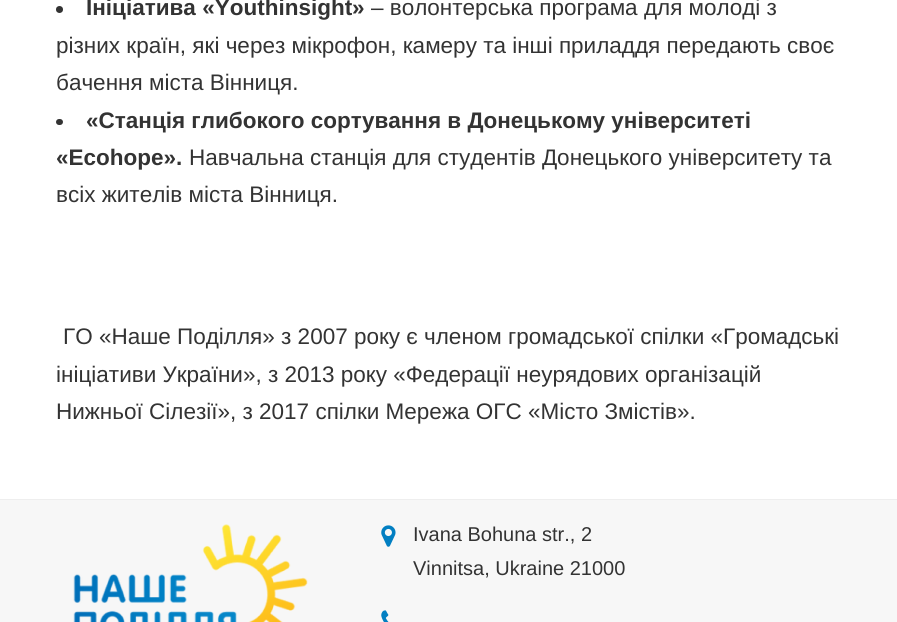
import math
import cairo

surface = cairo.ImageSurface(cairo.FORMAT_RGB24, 897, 622)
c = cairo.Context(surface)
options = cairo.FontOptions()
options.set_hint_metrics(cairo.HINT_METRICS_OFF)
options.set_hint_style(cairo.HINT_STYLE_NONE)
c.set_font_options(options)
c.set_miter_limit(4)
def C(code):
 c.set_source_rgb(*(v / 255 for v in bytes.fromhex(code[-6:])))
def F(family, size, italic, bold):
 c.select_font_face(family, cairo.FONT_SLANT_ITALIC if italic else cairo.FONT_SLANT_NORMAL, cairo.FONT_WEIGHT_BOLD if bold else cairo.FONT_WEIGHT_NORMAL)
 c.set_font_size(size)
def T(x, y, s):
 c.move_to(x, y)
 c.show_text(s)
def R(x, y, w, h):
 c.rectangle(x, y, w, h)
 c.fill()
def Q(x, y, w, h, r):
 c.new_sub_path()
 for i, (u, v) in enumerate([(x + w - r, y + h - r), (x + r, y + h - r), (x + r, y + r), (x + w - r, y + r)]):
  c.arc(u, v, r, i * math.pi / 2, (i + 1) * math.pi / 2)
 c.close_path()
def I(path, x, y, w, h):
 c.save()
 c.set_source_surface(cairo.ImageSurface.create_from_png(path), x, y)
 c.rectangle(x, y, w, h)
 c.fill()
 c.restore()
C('ffffff')
c.paint()
C('333333')
c.arc(59.5,9.5,3.5,0,2 * math.pi)
c.fill()
F('Liberation Sans',22.5,0,1)
T(86,15,'Ініціатива «Youthinsight»')
F('Liberation Sans',22.5,0,0)
T(371,15,'– волонтерська програма для молоді з')
T(56,53,'різних країн, які через мікрофон, камеру та інші приладдя передають своє')
T(56,90,'бачення міста Вінниця.')
Q(56,119,7,6,3)
c.fill()
F('Liberation Sans',22.5,0,1)
T(86,128,'«Станція глибокого сортування в Донецькому університеті')
T(56,165,'«Ecohope».')
F('Liberation Sans',22.5,0,0)
T(189,165,'Навчальна станція для студентів Донецького університету та')
T(56,202,'всіх жителів міста Вінниця.')
T(63,344,'ГО «Наше Поділля» з 2007 року є членом громадської спілки «Громадські')
T(56,382,'ініціативи України», з 2013 року «Федерації неурядових організацій')
T(56,419,'Нижньої Сілезії», з 2017 спілки Мережа ОГС «Місто Змістів».')
C('f7f7f7')
R(0,500,897,122)
C('eeeeee')
R(0,499,897,1)
I('1.png',73,524,235,98)
I('2.png',381,525,15,22)
F('Liberation Sans',20,0,0)
C('333333')
T(413,541,'Ivana Bohuna str., 2')
T(413,575,'Vinnitsa, Ukraine 21000')
I('3.png',381,610,8,12)
surface.write_to_png('o.png')
